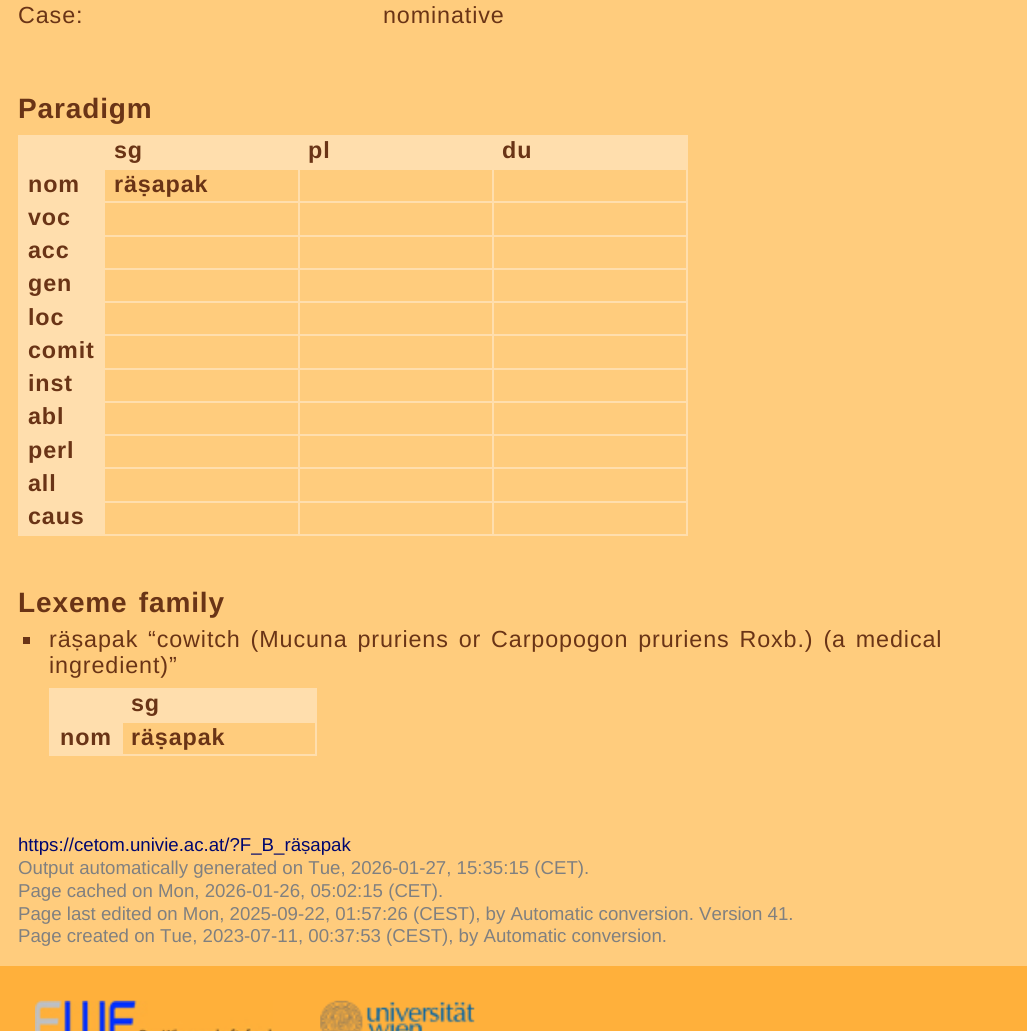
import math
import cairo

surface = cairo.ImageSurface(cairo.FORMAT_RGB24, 1027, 1031)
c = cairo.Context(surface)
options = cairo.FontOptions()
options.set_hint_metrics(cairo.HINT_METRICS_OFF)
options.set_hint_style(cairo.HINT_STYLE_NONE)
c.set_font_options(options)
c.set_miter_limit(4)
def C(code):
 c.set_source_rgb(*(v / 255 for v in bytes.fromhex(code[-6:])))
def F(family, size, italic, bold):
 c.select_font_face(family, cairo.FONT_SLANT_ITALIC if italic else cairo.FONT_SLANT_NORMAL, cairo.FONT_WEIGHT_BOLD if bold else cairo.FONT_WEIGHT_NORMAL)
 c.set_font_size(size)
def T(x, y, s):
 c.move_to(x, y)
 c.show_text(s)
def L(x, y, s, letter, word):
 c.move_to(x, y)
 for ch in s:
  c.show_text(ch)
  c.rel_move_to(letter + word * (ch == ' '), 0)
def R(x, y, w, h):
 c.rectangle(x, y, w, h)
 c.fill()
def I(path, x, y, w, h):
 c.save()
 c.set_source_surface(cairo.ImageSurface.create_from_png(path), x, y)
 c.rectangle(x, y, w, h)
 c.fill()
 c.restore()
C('ffcc7d')
c.paint()
F('Liberation Sans',23.35,0,0)
C('6a3416')
L(18,23,'Case:',.88,0)
L(383,23,'nominative',.88,0)
F('Liberation Sans',28,0,1)
L(18,118,'Paradigm',.88,0)
C('ffdead')
R(19,135,669,33)
F('Liberation Sans',23.35,0,1)
C('6a3416')
L(114,158,'sg',.88,0)
L(308,158,'pl',.88,0)
L(502,158,'du',.88,0)
C('ffdead')
R(492,168,196,2)
R(492,201,196,2)
R(492,235,196,2)
R(492,268,196,2)
R(492,301,196,2)
R(492,334,196,2)
R(492,368,196,2)
R(492,401,196,2)
R(492,434,196,2)
R(492,467,196,2)
R(492,501,196,2)
R(686,501,2,35)
R(492,534,196,2)
R(492,501,2,35)
R(298,501,196,2)
R(492,467,2,35)
R(298,467,196,2)
R(492,434,2,35)
R(298,434,196,2)
R(492,401,2,35)
R(298,401,196,2)
R(492,368,2,35)
R(298,368,196,2)
R(492,334,2,35)
R(298,334,196,2)
R(492,301,2,35)
R(298,301,196,2)
R(492,268,2,35)
R(298,268,196,2)
R(492,235,2,35)
R(298,235,196,2)
R(492,201,2,35)
R(298,201,196,2)
R(492,168,2,35)
R(298,168,196,2)
R(298,534,196,2)
R(298,501,2,35)
R(103,501,196,2)
R(298,467,2,35)
R(103,467,196,2)
R(298,434,2,35)
R(103,434,196,2)
R(298,401,2,35)
R(103,401,196,2)
R(298,368,2,35)
R(103,368,196,2)
R(298,334,2,35)
R(103,334,196,2)
R(298,301,2,35)
R(103,301,196,2)
R(298,268,2,35)
R(103,268,196,2)
R(298,235,2,35)
R(103,235,196,2)
R(298,201,2,35)
R(103,201,196,2)
R(298,168,2,35)
R(103,168,196,2)
R(19,168,86,333)
C('6a3416')
L(28,192,'nom',.88,0)
L(114,192,'räṣapak',.88,0)
C('ffdead')
R(686,467,2,35)
R(686,434,2,35)
R(686,401,2,35)
R(686,368,2,35)
R(686,334,2,35)
R(686,301,2,35)
R(686,268,2,35)
R(686,235,2,35)
R(686,201,2,35)
R(686,168,2,35)
C('6a3416')
L(28,225,'voc',.88,0)
L(28,258,'acc',.88,0)
L(28,291,'gen',.88,0)
L(28,325,'loc',.88,0)
L(28,358,'comit',.88,0)
L(28,391,'inst',.88,0)
L(28,424,'abl',.88,0)
L(28,458,'perl',.88,0)
C('ffdead')
R(18,534,281,2)
R(18,501,2,35)
R(18,135,1,367)
C('6a3416')
L(28,491,'all',.88,0)
C('ffdead')
R(20,501,85,33)
C('6a3416')
L(28,524,'caus',.88,0)
F('Liberation Sans',28,0,1)
L(18,612,'Lexeme family',.88,2.5)
R(23,637,7,7)
F('Liberation Sans',23.35,0,0)
L(49,647,'räṣapak',.88,0)
L(148,647,'“cowitch (Mucuna pruriens or Carpopogon pruriens Roxb.) (a medical',.88,2.5)
L(49,673,'ingredient)”',.88,0)
C('ffdead')
R(51,688,264,33)
F('Liberation Sans',23.35,0,1)
C('6a3416')
L(131,711,'sg',.88,0)
C('ffdead')
R(121,721,196,2)
R(315,688,2,68)
R(121,754,196,2)
R(121,721,2,35)
R(49,754,74,2)
R(49,688,2,68)
R(51,721,70,33)
C('6a3416')
L(60,745,'nom',.88,0)
L(131,745,'räṣapak',.88,0)
F('Liberation Sans',18.65,0,0)
C('00066e')
T(18,851,'https://cetom.univie.ac.at/?F_B_räṣapak')
C('808080')
T(18,874,'Output automatically generated on Tue, 2026-01-27, 15:35:15 (CET).')
T(18,897,'Page cached on Mon, 2026-01-26, 05:02:15 (CET).')
T(18,920,'Page last edited on Mon, 2025-09-22, 01:57:26 (CEST), by Automatic conversion. Version 41.')
T(18,942,'Page created on Tue, 2023-07-11, 00:37:53 (CEST), by Automatic conversion.')
C('ffb03b')
R(0,966,1027,65)
I('1.png',35,1000,238,31)
I('2.png',320,1000,155,31)
surface.write_to_png('o.png')
